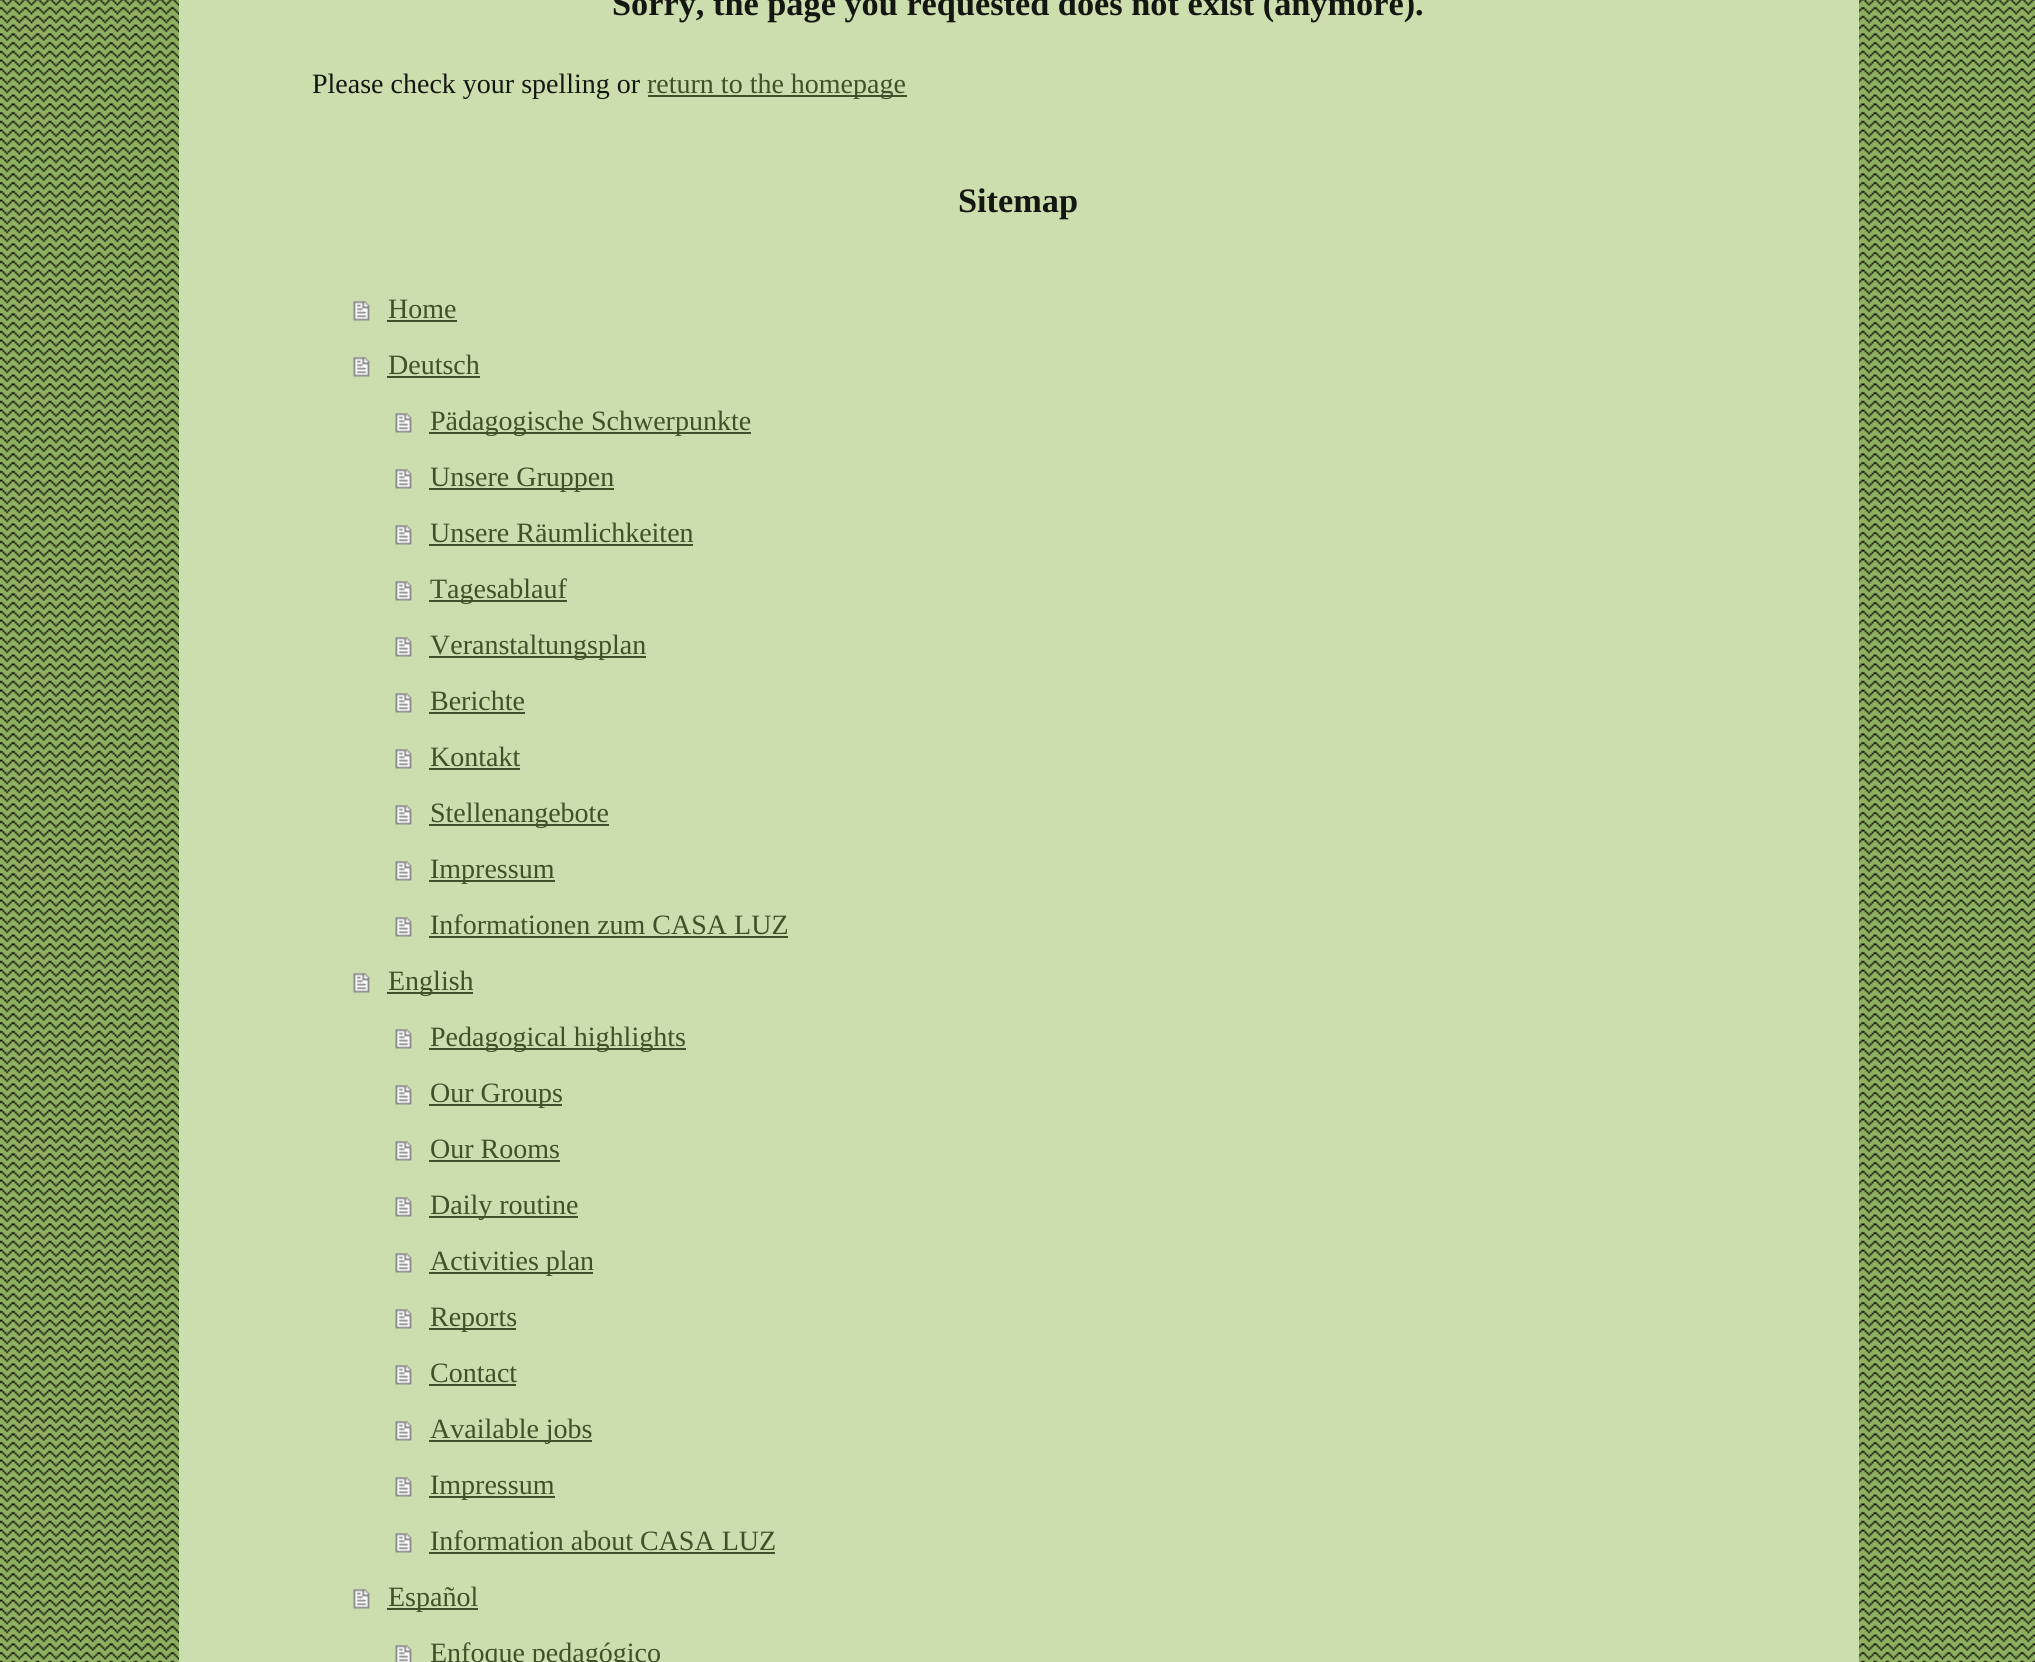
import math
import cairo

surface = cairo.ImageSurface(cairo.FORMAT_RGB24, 2035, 1662)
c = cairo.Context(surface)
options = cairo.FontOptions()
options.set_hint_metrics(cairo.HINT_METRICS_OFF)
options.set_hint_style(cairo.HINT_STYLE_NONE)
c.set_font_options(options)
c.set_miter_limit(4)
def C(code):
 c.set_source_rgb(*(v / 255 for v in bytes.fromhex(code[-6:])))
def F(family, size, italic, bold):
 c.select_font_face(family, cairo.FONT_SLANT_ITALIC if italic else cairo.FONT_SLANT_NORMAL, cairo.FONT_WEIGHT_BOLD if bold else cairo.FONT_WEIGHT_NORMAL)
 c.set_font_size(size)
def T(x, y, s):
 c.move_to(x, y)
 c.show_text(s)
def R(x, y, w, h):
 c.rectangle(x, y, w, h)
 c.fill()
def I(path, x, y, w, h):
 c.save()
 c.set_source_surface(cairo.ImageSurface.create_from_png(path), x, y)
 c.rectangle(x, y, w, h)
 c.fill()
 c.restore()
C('8fb061')
c.paint()
I('1.png',0,0,2035,1662)
C('ccdeae')
R(179,0,1680,1662)
F('Liberation Serif',34.3,0,1)
C('141611')
T(612,15,'Sorry, the page you requested does not exist (anymore).')
F('Liberation Serif',28,0,0)
T(312,93,'Please check your spelling or')
C('415029')
R(648,95,259,2)
T(647,93,'return to the homepage')
F('Liberation Serif',34.3,0,1)
C('141611')
T(958,212,'Sitemap')
I('2.png',353,300,17,21)
F('Liberation Serif',28,0,0)
C('415029')
T(388,318,'Home')
R(387,320,70,2)
I('2.png',353,356,17,21)
T(388,374,'Deutsch')
R(387,376,93,2)
I('2.png',395,412,17,21)
R(429,432,322,2)
T(430,430,'Pädagogische Schwerpunkte')
I('2.png',395,468,17,21)
R(429,488,185,2)
T(430,486,'Unsere Gruppen')
I('2.png',395,524,17,21)
T(430,542,'Unsere Räumlichkeiten')
R(429,544,264,2)
I('2.png',395,580,17,21)
R(429,600,138,2)
T(430,598,'Tagesablauf')
I('2.png',395,636,17,21)
R(429,656,217,2)
T(430,654,'Veranstaltungsplan')
I('2.png',395,692,17,21)
T(430,710,'Berichte')
R(429,712,96,2)
I('2.png',395,748,17,21)
T(430,766,'Kontakt')
R(429,768,91,2)
I('2.png',395,804,17,21)
R(429,824,180,2)
T(430,822,'Stellenangebote')
I('2.png',395,860,17,21)
R(429,880,126,2)
T(430,878,'Impressum')
I('2.png',395,916,17,21)
T(430,934,'Informationen zum CASA LUZ')
R(429,936,359,2)
I('2.png',353,972,17,21)
R(387,992,86,2)
T(388,990,'English')
I('2.png',395,1028,17,21)
R(429,1048,257,2)
T(430,1046,'Pedagogical highlights')
I('2.png',395,1084,17,21)
R(429,1104,133,2)
T(430,1102,'Our Groups')
I('2.png',395,1140,17,21)
T(430,1158,'Our Rooms')
R(429,1160,131,2)
I('2.png',395,1196,17,21)
R(429,1216,149,2)
T(430,1214,'Daily routine')
I('2.png',395,1252,17,21)
R(429,1272,164,2)
T(430,1270,'Activities plan')
I('2.png',395,1308,17,21)
R(429,1328,87,2)
T(430,1326,'Reports')
I('2.png',395,1364,17,21)
T(430,1382,'Contact')
R(429,1384,87,2)
I('2.png',395,1420,17,21)
R(429,1440,163,2)
T(430,1438,'Available jobs')
I('2.png',395,1476,17,21)
R(429,1496,126,2)
T(430,1494,'Impressum')
I('2.png',395,1532,17,21)
T(430,1550,'Information about CASA LUZ')
R(429,1552,346,2)
I('2.png',353,1588,17,21)
R(387,1608,91,2)
T(388,1606,'Español')
I('3.png',395,1644,17,18)
T(430,1662,'Enfoque pedagógico')
surface.write_to_png('o.png')
